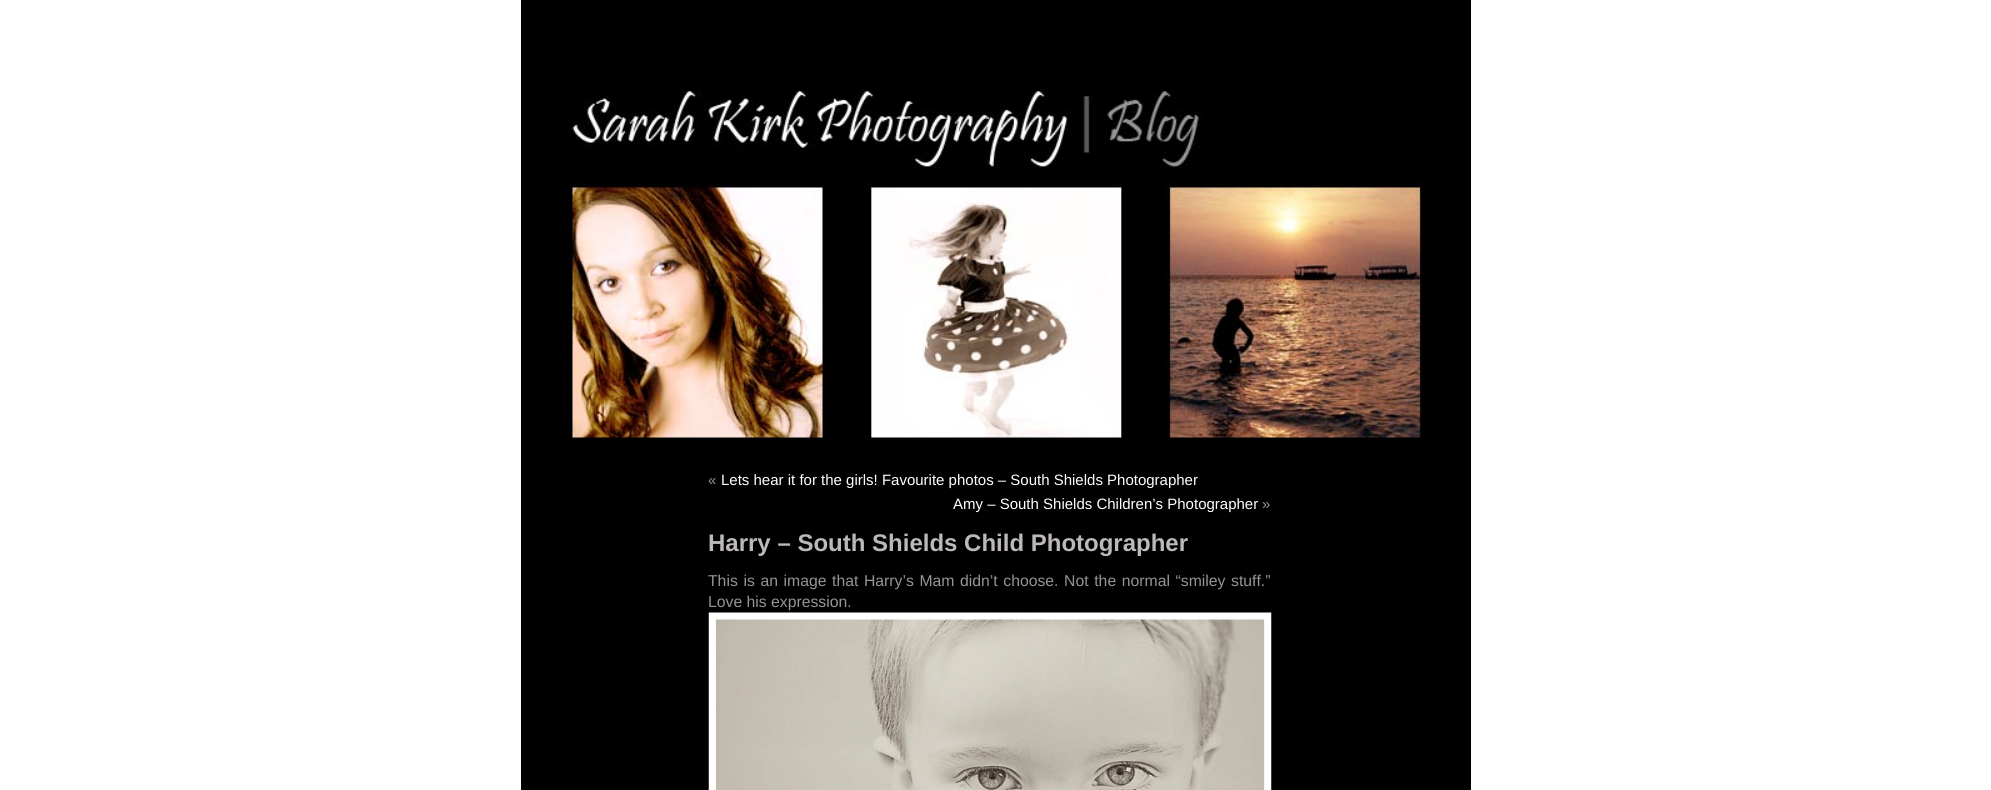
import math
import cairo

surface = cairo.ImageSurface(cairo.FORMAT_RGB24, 1991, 790)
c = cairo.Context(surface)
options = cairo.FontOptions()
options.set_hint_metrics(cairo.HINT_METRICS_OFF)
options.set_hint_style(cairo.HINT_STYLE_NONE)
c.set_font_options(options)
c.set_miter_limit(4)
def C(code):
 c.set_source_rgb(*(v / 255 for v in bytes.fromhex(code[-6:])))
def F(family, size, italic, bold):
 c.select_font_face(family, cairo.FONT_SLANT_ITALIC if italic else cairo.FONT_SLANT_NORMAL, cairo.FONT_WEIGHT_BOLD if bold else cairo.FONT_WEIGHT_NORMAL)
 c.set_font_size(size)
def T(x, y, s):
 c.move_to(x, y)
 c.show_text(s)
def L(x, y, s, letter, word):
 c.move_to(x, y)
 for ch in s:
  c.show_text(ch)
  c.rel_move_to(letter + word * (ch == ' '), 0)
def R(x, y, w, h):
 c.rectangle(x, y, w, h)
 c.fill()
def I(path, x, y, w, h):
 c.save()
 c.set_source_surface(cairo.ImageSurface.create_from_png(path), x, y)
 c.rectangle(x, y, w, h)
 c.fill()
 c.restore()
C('ffffff')
c.paint()
C('000000')
R(521,0,950,790)
I('1.png',563,90,860,348)
F('Liberation Sans',15,0,0)
C('959596')
T(708,485,'«')
C('ffffff')
T(721,485,'Lets hear it for the girls! Favourite photos – South Shields Photographer')
T(953,509,'Amy – South Shields Children’s Photographer')
C('959596')
T(1262,509,'»')
F('Liberation Sans',24,0,1)
C('bdb9b9')
T(708,551,'Harry – South Shields Child Photographer')
F('Liberation Sans',15.75,0,0)
C('959596')
L(708,586,'This is an image that Harry’s Mam didn’t choose. Not the normal “smiley stuff.”',0,1.25)
T(708,607,'Love his expression.')
I('2.png',708,612,564,178)
surface.write_to_png('o.png')
